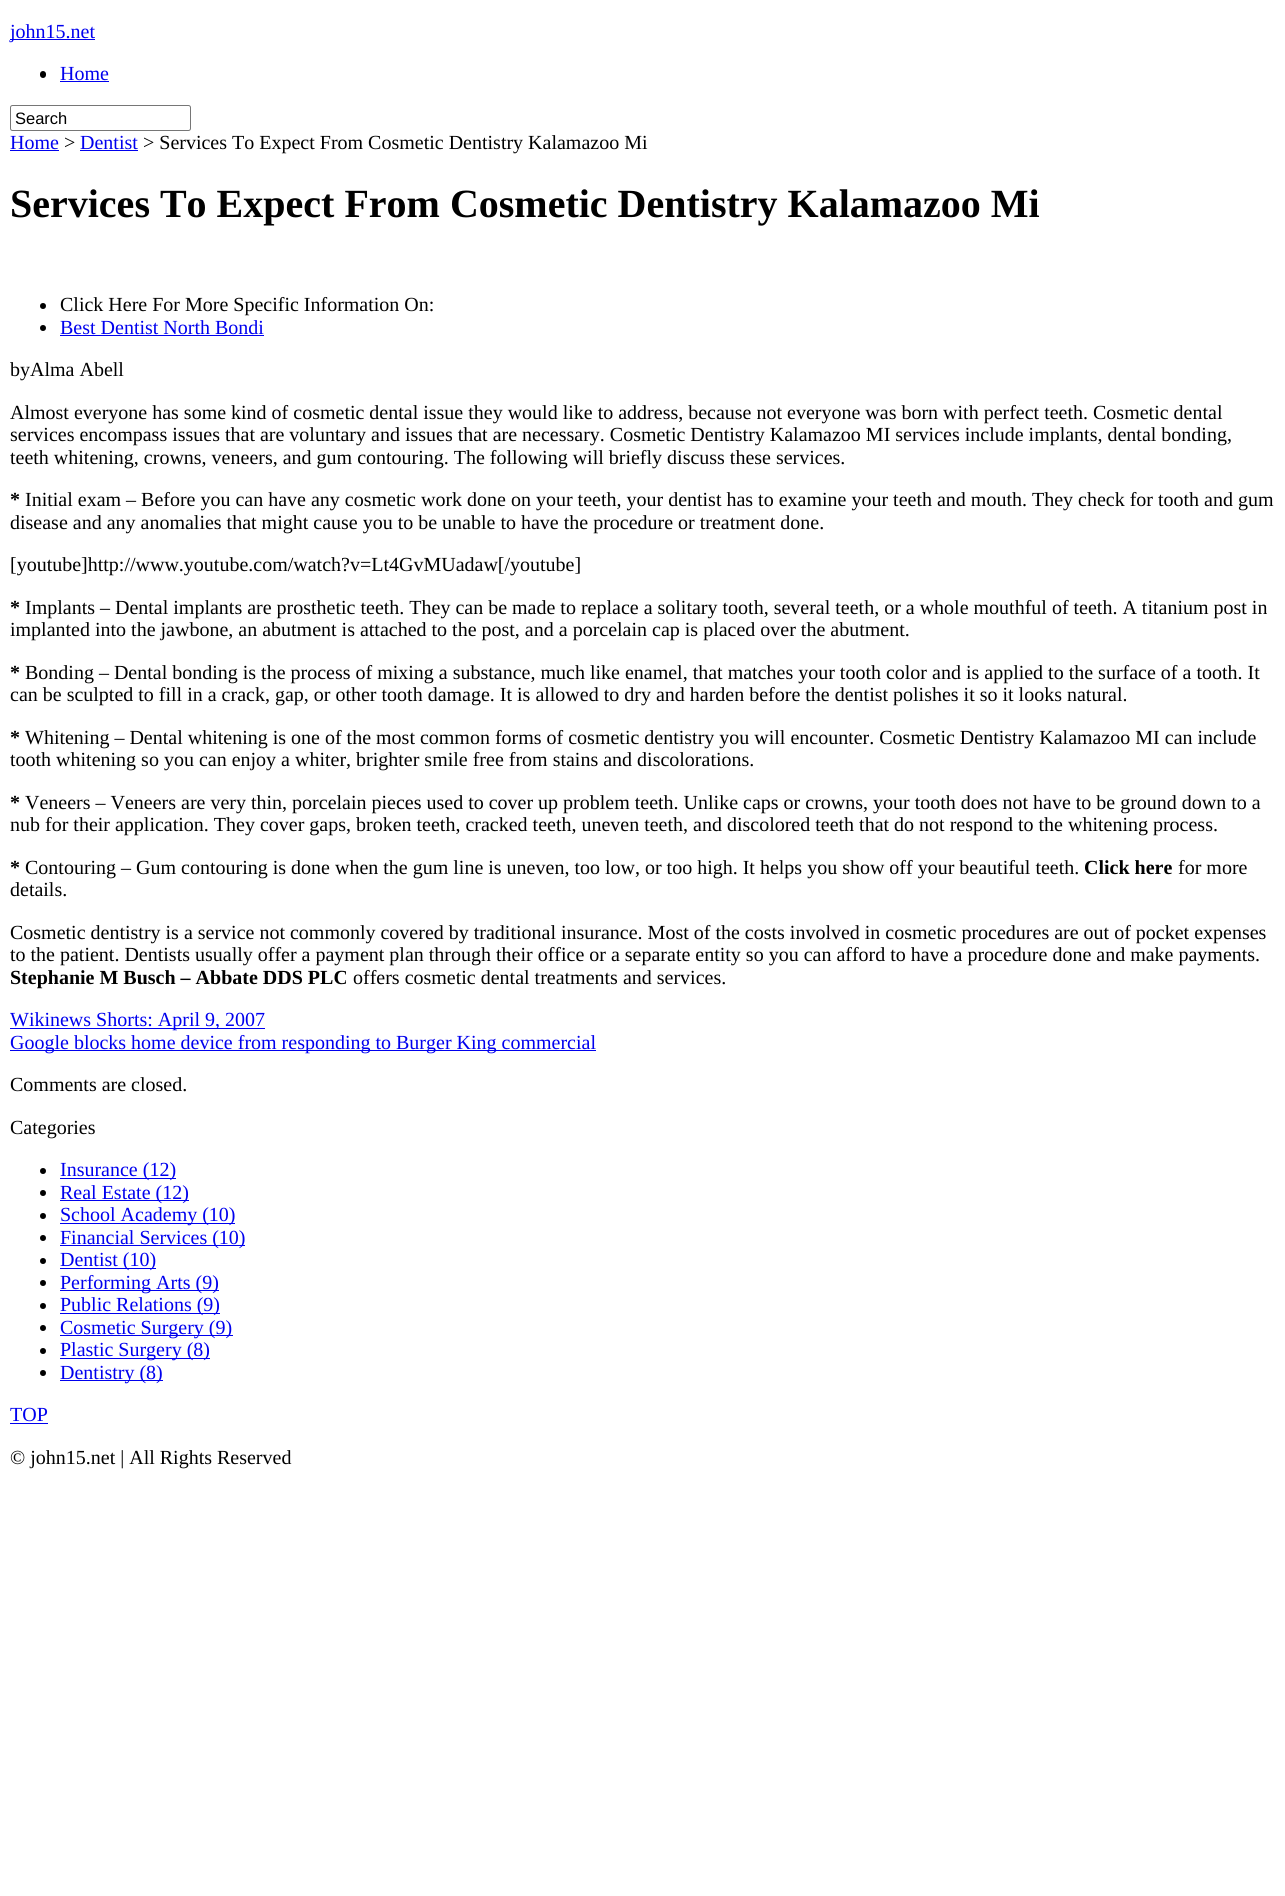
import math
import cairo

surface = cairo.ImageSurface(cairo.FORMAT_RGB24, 1285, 1896)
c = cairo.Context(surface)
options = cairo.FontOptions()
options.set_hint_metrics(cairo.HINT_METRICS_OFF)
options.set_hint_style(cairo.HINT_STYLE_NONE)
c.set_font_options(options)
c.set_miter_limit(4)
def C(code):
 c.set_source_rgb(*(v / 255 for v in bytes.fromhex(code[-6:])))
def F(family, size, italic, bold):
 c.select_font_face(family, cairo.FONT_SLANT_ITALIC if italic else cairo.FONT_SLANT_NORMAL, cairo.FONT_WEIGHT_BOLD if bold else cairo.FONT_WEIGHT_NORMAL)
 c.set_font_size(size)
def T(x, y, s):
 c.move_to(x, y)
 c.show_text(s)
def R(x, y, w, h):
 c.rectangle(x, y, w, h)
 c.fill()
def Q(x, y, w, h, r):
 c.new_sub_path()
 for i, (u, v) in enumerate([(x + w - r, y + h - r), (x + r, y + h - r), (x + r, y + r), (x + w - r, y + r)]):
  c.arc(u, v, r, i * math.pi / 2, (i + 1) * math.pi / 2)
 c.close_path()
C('ffffff')
c.paint()
C('0000ee')
R(10,39,85,1)
F('Liberation Serif',20,0,0)
T(10,38,'john15.net')
C('000000')
Q(40,71,6,7,3)
c.fill()
C('0000ee')
T(60,80,'Home')
R(60,81,49,1)
Q(10.5,105.5,180,25,2)
C('767676')
c.set_line_width(1)
c.stroke()
F('Liberation Sans',16.5,0,0)
C('000000')
T(15,124,'Search')
F('Liberation Serif',20,0,0)
C('0000ee')
T(10,149,'Home')
R(10,150,49,1)
C('000000')
T(64,149,'>')
C('0000ee')
T(80,149,'Dentist')
R(80,150,58,1)
C('000000')
T(143,149,'> Services To Expect From Cosmetic Dentistry Kalamazoo Mi')
F('Liberation Serif',40,0,1)
T(10,217,'Services To Expect From Cosmetic Dentistry Kalamazoo Mi')
c.new_path()
c.arc(43,306,3,0,2 * math.pi)
c.fill()
F('Liberation Serif',20,0,0)
T(60,311,'Click Here For More Specific Information On:')
c.new_path()
c.arc(43,328,3,0,2 * math.pi)
c.fill()
C('0000ee')
T(60,334,'Best Dentist North Bondi')
R(60,335,204,1)
C('000000')
T(10,376,'byAlma Abell')
T(10,419,'Almost everyone has some kind of cosmetic dental issue they would like to address, because not everyone was born with perfect teeth. Cosmetic dental')
T(10,441,'services encompass issues that are voluntary and issues that are necessary. Cosmetic Dentistry Kalamazoo MI services include implants, dental bonding,')
T(10,464,'teeth whitening, crowns, veneers, and gum contouring. The following will briefly discuss these services.')
F('Liberation Serif',20,0,1)
T(10,506,'*')
F('Liberation Serif',20,0,0)
T(25,506,'Initial exam – Before you can have any cosmetic work done on your teeth, your dentist has to examine your teeth and mouth. They check for tooth and gum')
T(10,529,'disease and any anomalies that might cause you to be unable to have the procedure or treatment done.')
T(10,571,'[youtube]http://www.youtube.com/watch?v=Lt4GvMUadaw[/youtube]')
F('Liberation Serif',20,0,1)
T(10,614,'*')
F('Liberation Serif',20,0,0)
T(25,614,'Implants – Dental implants are prosthetic teeth. They can be made to replace a solitary tooth, several teeth, or a whole mouthful of teeth. A titanium post in')
T(10,636,'implanted into the jawbone, an abutment is attached to the post, and a porcelain cap is placed over the abutment.')
F('Liberation Serif',20,0,1)
T(10,679,'*')
F('Liberation Serif',20,0,0)
T(25,679,'Bonding – Dental bonding is the process of mixing a substance, much like enamel, that matches your tooth color and is applied to the surface of a tooth. It')
T(10,701,'can be sculpted to fill in a crack, gap, or other tooth damage. It is allowed to dry and harden before the dentist polishes it so it looks natural.')
F('Liberation Serif',20,0,1)
T(10,744,'*')
F('Liberation Serif',20,0,0)
T(25,744,'Whitening – Dental whitening is one of the most common forms of cosmetic dentistry you will encounter. Cosmetic Dentistry Kalamazoo MI can include')
T(10,766,'tooth whitening so you can enjoy a whiter, brighter smile free from stains and discolorations.')
F('Liberation Serif',20,0,1)
T(10,809,'*')
F('Liberation Serif',20,0,0)
T(25,809,'Veneers – Veneers are very thin, porcelain pieces used to cover up problem teeth. Unlike caps or crowns, your tooth does not have to be ground down to a')
T(10,831,'nub for their application. They cover gaps, broken teeth, cracked teeth, uneven teeth, and discolored teeth that do not respond to the whitening process.')
F('Liberation Serif',20,0,1)
T(10,874,'*')
F('Liberation Serif',20,0,0)
T(25,874,'Contouring – Gum contouring is done when the gum line is uneven, too low, or too high. It helps you show off your beautiful teeth.')
F('Liberation Serif',20,0,1)
T(1084,874,'Click here')
F('Liberation Serif',20,0,0)
T(1178,874,'for more')
T(10,896,'details.')
T(10,939,'Cosmetic dentistry is a service not commonly covered by traditional insurance. Most of the costs involved in cosmetic procedures are out of pocket expenses')
T(10,961,'to the patient. Dentists usually offer a payment plan through their office or a separate entity so you can afford to have a procedure done and make payments.')
F('Liberation Serif',20,0,1)
T(10,984,'Stephanie M Busch – Abbate DDS PLC')
F('Liberation Serif',20,0,0)
T(353,984,'offers cosmetic dental treatments and services.')
C('0000ee')
R(10,1028,255,1)
T(10,1026,'Wikinews Shorts: April 9, 2007')
R(10,1050,586,1)
T(10,1049,'Google blocks home device from responding to Burger King commercial')
C('000000')
T(10,1091,'Comments are closed.')
T(10,1134,'Categories')
c.new_path()
c.arc(43,1171,3,0,2 * math.pi)
c.fill()
C('0000ee')
R(60,1178,116,1)
T(60,1176,'Insurance (12)')
C('000000')
c.new_path()
c.arc(43,1193,3,0,2 * math.pi)
c.fill()
C('0000ee')
R(60,1200,129,1)
T(60,1199,'Real Estate (12)')
C('000000')
c.new_path()
c.arc(43,1216,3,0,2 * math.pi)
c.fill()
C('0000ee')
R(60,1223,175,1)
T(60,1221,'School Academy (10)')
C('000000')
c.new_path()
c.arc(43,1238,3,0,2 * math.pi)
c.fill()
C('0000ee')
R(60,1245,185,1)
T(60,1244,'Financial Services (10)')
C('000000')
c.new_path()
c.arc(43,1261,3,0,2 * math.pi)
c.fill()
C('0000ee')
R(60,1268,96,1)
T(60,1266,'Dentist (10)')
C('000000')
c.new_path()
c.arc(43,1283,3,0,2 * math.pi)
c.fill()
C('0000ee')
R(60,1290,159,1)
T(60,1289,'Performing Arts (9)')
C('000000')
c.new_path()
c.arc(43,1306,3,0,2 * math.pi)
c.fill()
C('0000ee')
R(60,1313,160,1)
T(60,1311,'Public Relations (9)')
C('000000')
c.new_path()
c.arc(43,1328,3,0,2 * math.pi)
c.fill()
C('0000ee')
R(60,1335,173,1)
T(60,1334,'Cosmetic Surgery (9)')
C('000000')
c.new_path()
c.arc(43,1351,3,0,2 * math.pi)
c.fill()
C('0000ee')
R(60,1358,150,1)
T(60,1356,'Plastic Surgery (8)')
C('000000')
c.new_path()
c.arc(43,1373,3,0,2 * math.pi)
c.fill()
C('0000ee')
R(60,1380,103,1)
T(60,1379,'Dentistry (8)')
T(10,1421,'TOP')
R(10,1423,38,1)
C('000000')
T(10,1464,'© john15.net | All Rights Reserved')
surface.write_to_png('o.png')
